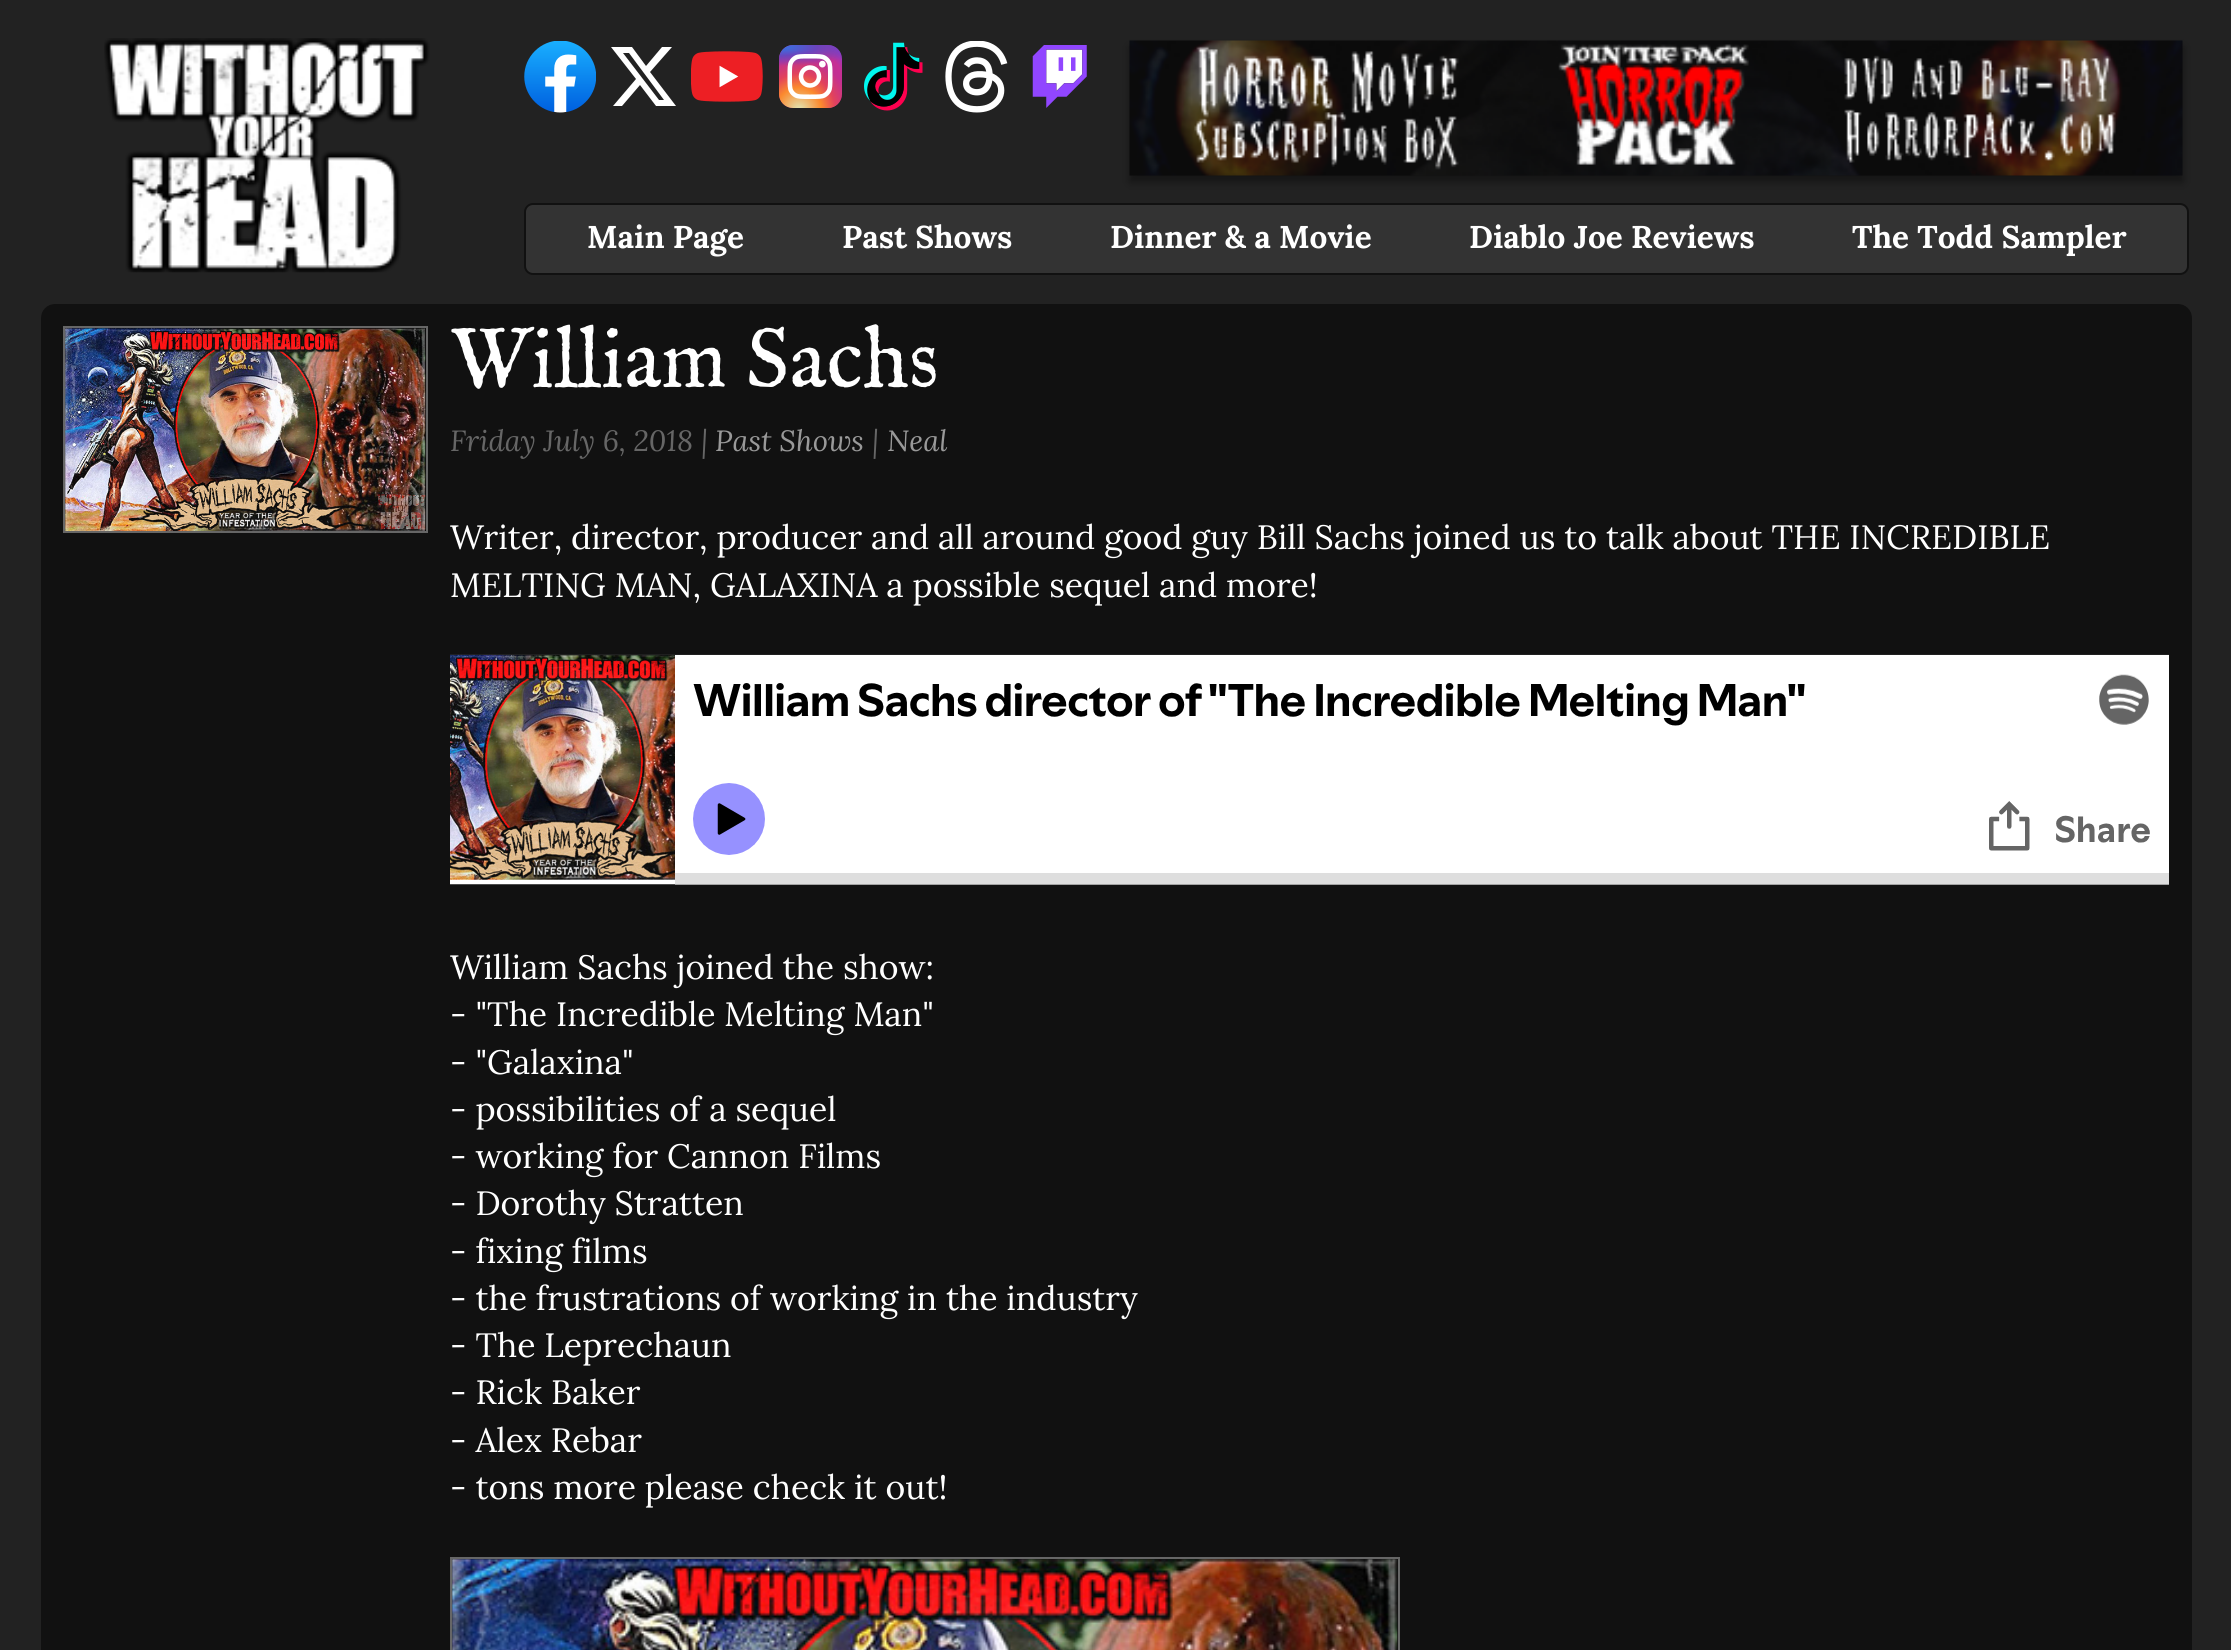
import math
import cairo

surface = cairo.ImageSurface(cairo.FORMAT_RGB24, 2231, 1650)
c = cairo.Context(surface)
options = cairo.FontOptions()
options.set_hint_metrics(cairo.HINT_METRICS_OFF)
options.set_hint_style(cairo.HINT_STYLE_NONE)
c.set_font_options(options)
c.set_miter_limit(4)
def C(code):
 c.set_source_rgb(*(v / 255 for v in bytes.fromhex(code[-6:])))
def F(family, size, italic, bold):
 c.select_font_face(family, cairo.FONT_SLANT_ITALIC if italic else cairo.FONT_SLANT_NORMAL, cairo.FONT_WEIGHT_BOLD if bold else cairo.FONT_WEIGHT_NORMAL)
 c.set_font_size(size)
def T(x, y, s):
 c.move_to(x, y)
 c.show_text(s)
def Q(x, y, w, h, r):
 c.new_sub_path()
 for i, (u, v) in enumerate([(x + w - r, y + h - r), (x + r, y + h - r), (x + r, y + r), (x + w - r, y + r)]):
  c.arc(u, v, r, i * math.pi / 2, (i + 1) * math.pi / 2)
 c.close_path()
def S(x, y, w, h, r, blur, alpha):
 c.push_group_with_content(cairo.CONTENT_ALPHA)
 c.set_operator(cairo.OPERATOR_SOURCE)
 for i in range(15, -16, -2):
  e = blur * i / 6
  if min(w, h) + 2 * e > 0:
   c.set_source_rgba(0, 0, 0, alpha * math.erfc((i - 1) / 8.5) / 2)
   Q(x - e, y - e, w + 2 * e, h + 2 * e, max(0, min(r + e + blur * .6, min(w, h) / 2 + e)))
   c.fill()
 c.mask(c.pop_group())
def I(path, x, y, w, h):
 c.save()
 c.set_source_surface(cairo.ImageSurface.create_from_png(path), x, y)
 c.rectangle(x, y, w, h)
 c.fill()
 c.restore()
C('222222')
c.paint()
I('1.png',104,38,326,235)
I('2.png',524,41,72,72)
C('ffffff')
c.new_path()
c.move_to(662,47)
c.line_to(672,47)
c.line_to(650,72)
c.line_to(676,106)
c.line_to(656,106)
c.line_to(640,85)
c.line_to(622,106)
c.line_to(613,106)
c.line_to(636,79)
c.line_to(611,47)
c.line_to(632,47)
c.line_to(646,66)
c.close_path()
c.move_to(659,100)
c.line_to(664,100)
c.line_to(629,53)
c.line_to(623,53)
c.close_path()
c.fill()
I('3.png',691,51,72,51)
I('4.png',779,45,63,63)
I('5.png',864,42,59,69)
I('6.png',945,41,63,72)
I('7.png',1032,45,55,63)
C('000000')
S(1130,47,1053,135,0,4.5,.4)
I('8.png',1129,40,1054,136)
C('333333')
Q(525,204,1663,70,8)
c.fill_preserve()
C('111111')
c.stroke()
F('Lora',31.5,0,1)
C('ffffff')
T(587,248,'Main Page')
T(842,248,'Past Shows')
T(1110,248,'Dinner & a Movie')
T(1469,248,'Diablo Joe Reviews')
T(1852,248,'The Todd Sampler')
C('111111')
Q(41,304,2151,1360,14)
c.fill()
c.rectangle(64,327,363,205)
C('666666')
c.stroke()
I('9.png',65,328,361,203)
F('IM FELL English',85.5,0,0)
C('ffffff')
T(450,387,'William Sachs')
F('Lora',29.25,1,0)
C('666666')
T(450,451,'Friday July 6, 2018 |')
C('999999')
T(715,451,'Past Shows')
C('666666')
T(872,451,'|')
C('999999')
T(887,451,'Neal')
F('Lora',33.75,0,0)
C('ffffff')
T(450,549,'Writer, director, producer and all around good guy Bill Sachs joined us to talk about THE INCREDIBLE')
T(450,597,'MELTING MAN, GALAXINA a possible sequel and more!')
I('10.png',450,654,1719,231)
T(450,979,'William Sachs joined the show:')
T(450,1026,'- "The Incredible Melting Man"')
T(450,1074,'- "Galaxina"')
T(450,1121,'- possibilities of a sequel')
T(450,1168,'- working for Cannon Films')
T(450,1215,'- Dorothy Stratten')
T(450,1263,'- fixing films')
T(450,1310,'- the frustrations of working in the industry')
T(450,1357,'- The Leprechaun')
T(450,1404,'- Rick Baker')
T(450,1452,'- Alex Rebar')
T(450,1499,'- tons more please check it out!')
c.rectangle(451,1558,948,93)
C('666666')
c.stroke()
I('11.png',452,1559,946,91)
surface.write_to_png('o.png')
